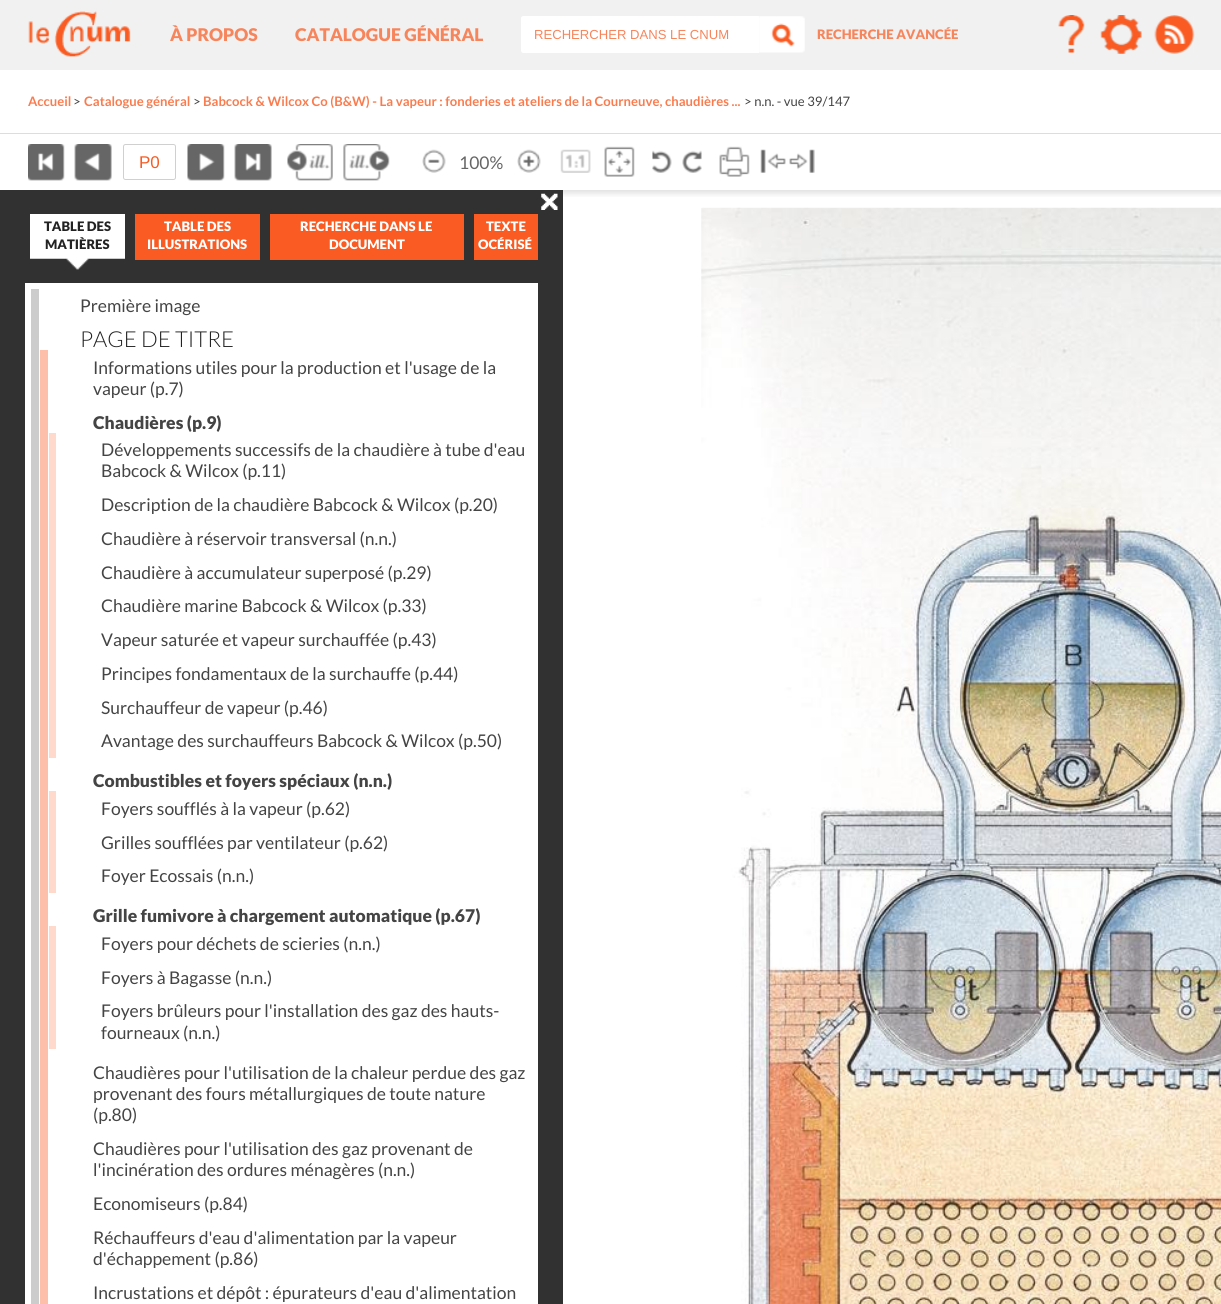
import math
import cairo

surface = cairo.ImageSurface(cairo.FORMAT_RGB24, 1221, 1304)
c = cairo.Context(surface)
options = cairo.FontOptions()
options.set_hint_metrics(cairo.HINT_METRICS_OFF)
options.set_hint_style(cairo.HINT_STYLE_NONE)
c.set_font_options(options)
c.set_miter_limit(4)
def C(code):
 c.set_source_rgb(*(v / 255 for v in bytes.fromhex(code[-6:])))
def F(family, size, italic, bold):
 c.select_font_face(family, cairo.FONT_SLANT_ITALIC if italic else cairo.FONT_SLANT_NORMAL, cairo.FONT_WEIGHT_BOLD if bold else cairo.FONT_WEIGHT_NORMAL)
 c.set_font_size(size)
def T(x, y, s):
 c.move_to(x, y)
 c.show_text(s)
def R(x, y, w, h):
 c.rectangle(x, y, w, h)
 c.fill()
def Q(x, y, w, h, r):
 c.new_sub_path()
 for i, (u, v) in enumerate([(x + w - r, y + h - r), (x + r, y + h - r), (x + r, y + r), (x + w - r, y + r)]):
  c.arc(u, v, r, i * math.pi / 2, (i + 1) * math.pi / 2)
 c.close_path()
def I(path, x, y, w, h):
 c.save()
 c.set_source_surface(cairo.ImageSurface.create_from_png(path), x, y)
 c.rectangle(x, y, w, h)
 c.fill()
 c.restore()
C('ffffff')
c.paint()
C('f1f1f1')
R(0,0,1221,70)
I('1.png',28,11,103,46)
F('Lato Black',17.5,0,0)
C('f7855c')
T(170,41,'À PROPOS')
T(295,41,'CATALOGUE GÉNÉRAL')
C('ffffff')
c.new_path()
c.move_to(523.5,16)
c.line_to(759,16)
c.line_to(759,53)
c.line_to(523.5,53)
c.curve_to(522,53,521,52,521,50.5)
c.line_to(521,18.5)
c.curve_to(521,17,522,16,523.5,16)
c.close_path()
c.fill()
F('Liberation Sans',13.1,0,0)
C('f7855c')
T(534,39,'RECHERCHER DANS LE CNUM')
I('2.png',759,16,46,37)
F('Lato Black',13.1,0,0)
T(817,39,'RECHERCHE AVANCÉE')
I('3.png',1058,15,27,38)
I('4.png',1100,15,42,39)
I('5.png',1154,15,41,39)
F('Lato',13.1,0,1)
C('fa7c4e')
T(28,106,'Accueil')
F('Lato',13.1,0,0)
C('444444')
T(73,106,'>')
F('Lato',13.1,0,1)
C('fa7c4e')
T(84,106,'Catalogue général')
F('Lato',13.1,0,0)
C('444444')
T(193,106,'>')
F('Lato',13.1,0,1)
C('fa7c4e')
T(203,106,'Babcock & Wilcox Co (B&W) - La vapeur : fonderies et ateliers de la Courneuve, chaudières ...')
F('Lato',13.1,0,0)
C('444444')
T(744,106,'> n.n. - vue 39/147')
C('dddddd')
R(0,133,1221,1)
I('6.png',28,144,37,37)
I('7.png',74,144,38,37)
Q(123.5,144.5,52,35,2)
C('d0d0d0')
c.set_line_width(1)
c.stroke()
F('Liberation Sans',17,0,0)
C('f95b22')
T(139,168,'P0')
I('8.png',187,144,38,37)
I('9.png',234,144,38,37)
I('10.png',287,144,46,37)
I('11.png',343,144,47,37)
I('12.png',422,149,24,24)
F('Lato',17.5,0,0)
C('666666')
T(459,169,'100%')
I('13.png',517,149,24,24)
I('14.png',560,149,31,24)
I('15.png',604,146,31,31)
I('16.png',652,150,20,23)
I('17.png',682,150,20,23)
I('18.png',719,146,31,31)
I('19.png',760,149,26,24)
I('20.png',789,149,26,24)
I('21.png',563,190,658,7)
C('313131')
R(0,190,563,1114)
I('22.png',541,193,17,17)
C('ffffff')
R(30,214,95,45)
I('23.png',30,258,95,12)
F('Lato Black',13.1,0,0)
C('222222')
T(44,231,'TABLE DES')
T(45,249,'MATIÈRES')
C('f95b22')
R(135,214,125,46)
C('ffffff')
T(164,231,'TABLE DES')
T(147,249,'ILLUSTRATIONS')
C('f95b22')
R(270,214,194,46)
C('ffffff')
T(300,231,'RECHERCHE DANS LE')
T(329,249,'DOCUMENT')
C('f95b22')
R(474,214,64,46)
C('ffffff')
T(486,231,'TEXTE')
T(478,249,'OCÉRISÉ')
R(25,283,513,1021)
C('cccccc')
R(31,289,8,1015)
F('Lato',17.5,0,0)
C('444444')
T(80,312,'Première image')
F('Lato Light',22,0,0)
C('222222')
T(80,347,'PAGE DE TITRE')
C('fdbfa9')
R(40,350,8,954)
F('Lato',17.5,0,0)
C('444444')
T(93,374,'Informations utiles pour la production et l\'usage de la')
T(93,395,'vapeur (p.7)')
F('Lato Black',17.5,0,0)
T(93,429,'Chaudières (p.9)')
C('fed9cc')
R(49,433,7,325)
F('Lato',17.5,0,0)
C('444444')
T(101,456,'Développements successifs de la chaudière à tube d\'eau')
T(101,477,'Babcock & Wilcox (p.11)')
T(101,511,'Description de la chaudière Babcock & Wilcox (p.20)')
T(101,545,'Chaudière à réservoir transversal (n.n.)')
T(101,579,'Chaudière à accumulateur superposé (p.29)')
T(101,612,'Chaudière marine Babcock & Wilcox (p.33)')
T(101,646,'Vapeur saturée et vapeur surchauffée (p.43)')
T(101,680,'Principes fondamentaux de la surchauffe (p.44)')
T(101,714,'Surchauffeur de vapeur (p.46)')
T(101,747,'Avantage des surchauffeurs Babcock & Wilcox (p.50)')
F('Lato Black',17.5,0,0)
T(93,787,'Combustibles et foyers spéciaux (n.n.)')
C('fed9cc')
R(49,791,7,102)
F('Lato',17.5,0,0)
C('444444')
T(101,815,'Foyers soufflés à la vapeur (p.62)')
T(101,849,'Grilles soufflées par ventilateur (p.62)')
T(101,882,'Foyer Ecossais (n.n.)')
F('Lato Black',17.5,0,0)
T(93,922,'Grille fumivore à chargement automatique (p.67)')
C('fed9cc')
R(49,926,7,123)
F('Lato',17.5,0,0)
C('444444')
T(101,950,'Foyers pour déchets de scieries (n.n.)')
T(101,984,'Foyers à Bagasse (n.n.)')
T(101,1017,'Foyers brûleurs pour l\'installation des gaz des hauts-')
T(101,1039,'fourneaux (n.n.)')
T(93,1079,'Chaudières pour l\'utilisation de la chaleur perdue des gaz')
T(93,1100,'provenant des fours métallurgiques de toute nature')
T(93,1121,'(p.80)')
T(93,1155,'Chaudières pour l\'utilisation des gaz provenant de')
T(93,1176,'l\'incinération des ordures ménagères (n.n.)')
T(93,1210,'Economiseurs (p.84)')
T(93,1244,'Réchauffeurs d\'eau d\'alimentation par la vapeur')
T(93,1265,'d\'échappement (p.86)')
T(93,1299,'Incrustations et dépôt : épurateurs d\'eau d\'alimentation')
I('24.png',701,207,520,1097)
surface.write_to_png('o.png')
